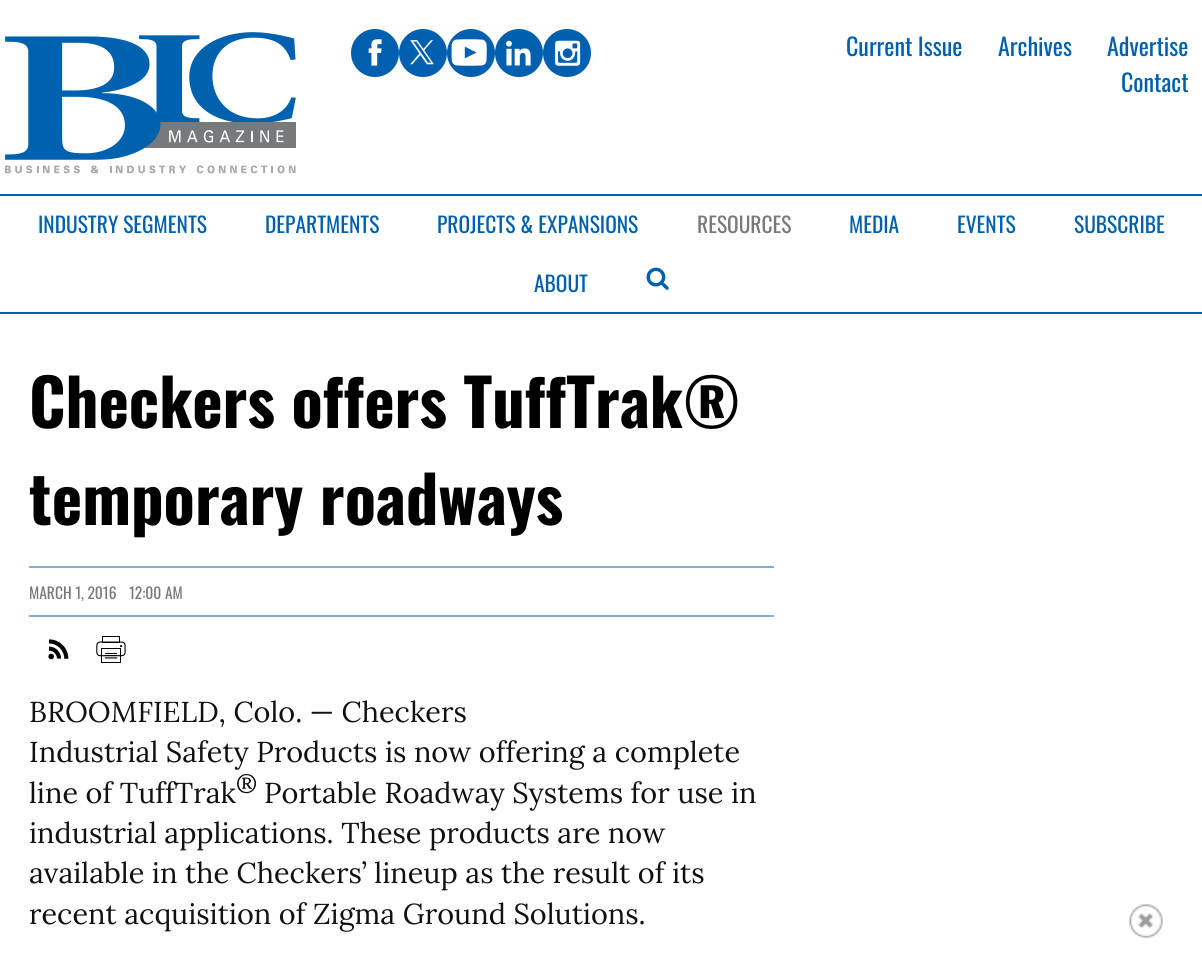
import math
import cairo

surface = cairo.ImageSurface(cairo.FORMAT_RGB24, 1202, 972)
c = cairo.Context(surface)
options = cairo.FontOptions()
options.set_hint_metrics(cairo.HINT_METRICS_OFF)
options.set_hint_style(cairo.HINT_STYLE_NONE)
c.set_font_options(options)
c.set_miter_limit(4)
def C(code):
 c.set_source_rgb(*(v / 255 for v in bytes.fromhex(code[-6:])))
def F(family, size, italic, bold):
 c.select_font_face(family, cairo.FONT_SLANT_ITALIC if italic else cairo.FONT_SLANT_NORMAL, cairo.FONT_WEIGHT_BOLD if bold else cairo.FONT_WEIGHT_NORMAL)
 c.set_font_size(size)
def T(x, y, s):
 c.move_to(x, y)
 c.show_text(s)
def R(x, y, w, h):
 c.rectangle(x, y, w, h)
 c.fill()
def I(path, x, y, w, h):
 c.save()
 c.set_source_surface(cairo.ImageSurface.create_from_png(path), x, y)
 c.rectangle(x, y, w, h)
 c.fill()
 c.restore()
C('ffffff')
c.paint()
I('1.png',5,32,291,142)
C('0060af')
c.arc(375,53,24,0,2 * math.pi)
c.fill()
I('2.png',368,39,14,27)
c.arc(423,53,24,0,2 * math.pi)
c.fill()
I('3.png',410,40,24,25)
c.arc(471,53,24,0,2 * math.pi)
c.fill()
I('4.png',451,39,36,27)
c.arc(519,53,24,0,2 * math.pi)
c.fill()
I('5.png',506,40,25,26)
c.arc(567,53,24,0,2 * math.pi)
c.fill()
I('6.png',555,40,26,26)
F('Oswald',24,0,0)
T(846,56,'Current Issue')
T(998,56,'Archives')
T(1107,56,'Advertise')
T(1121,92,'Contact')
R(0,194,1202,2)
R(0,312,1202,2)
F('Oswald',21.5,0,0)
T(38,233,'INDUSTRY SEGMENTS')
T(265,233,'DEPARTMENTS')
T(437,233,'PROJECTS & EXPANSIONS')
C('77797b')
T(697,233,'RESOURCES')
C('0060af')
T(849,233,'MEDIA')
T(957,233,'EVENTS')
T(1074,233,'SUBSCRIBE')
T(534,292,'ABOUT')
I('7.png',646,267,23,23)
F('Oswald',64.75,0,1)
C('000000')
T(29,428,'Checkers offers TuffTrak®')
T(29,525,'temporary roadways')
C('80b0d7')
R(29,566,745,2)
R(29,615,745,2)
F('Oswald',15.5,0,0)
C('77797b')
T(29,599,'MARCH 1, 2016')
T(129,599,'12:00 AM')
I('8.png',48,639,21,21)
I('9.png',96,636,30,27)
F('Lora',28.8,0,0)
C('111111')
T(29,722,'BROOMFIELD, Colo. — Checkers')
T(29,762,'Industrial Safety Products is now offering a complete')
T(29,803,'line of TuffTrak')
F('Lora',24,0,0)
T(236,792,'®')
F('Lora',28.8,0,0)
T(264,803,'Portable Roadway Systems for use in')
T(29,843,'industrial applications. These products are now')
T(29,883,'available in the Checkers’ lineup as the result of its')
T(29,924,'recent acquisition of Zigma Ground Solutions.')
I('10.png',1129,904,34,34)
surface.write_to_png('o.png')
